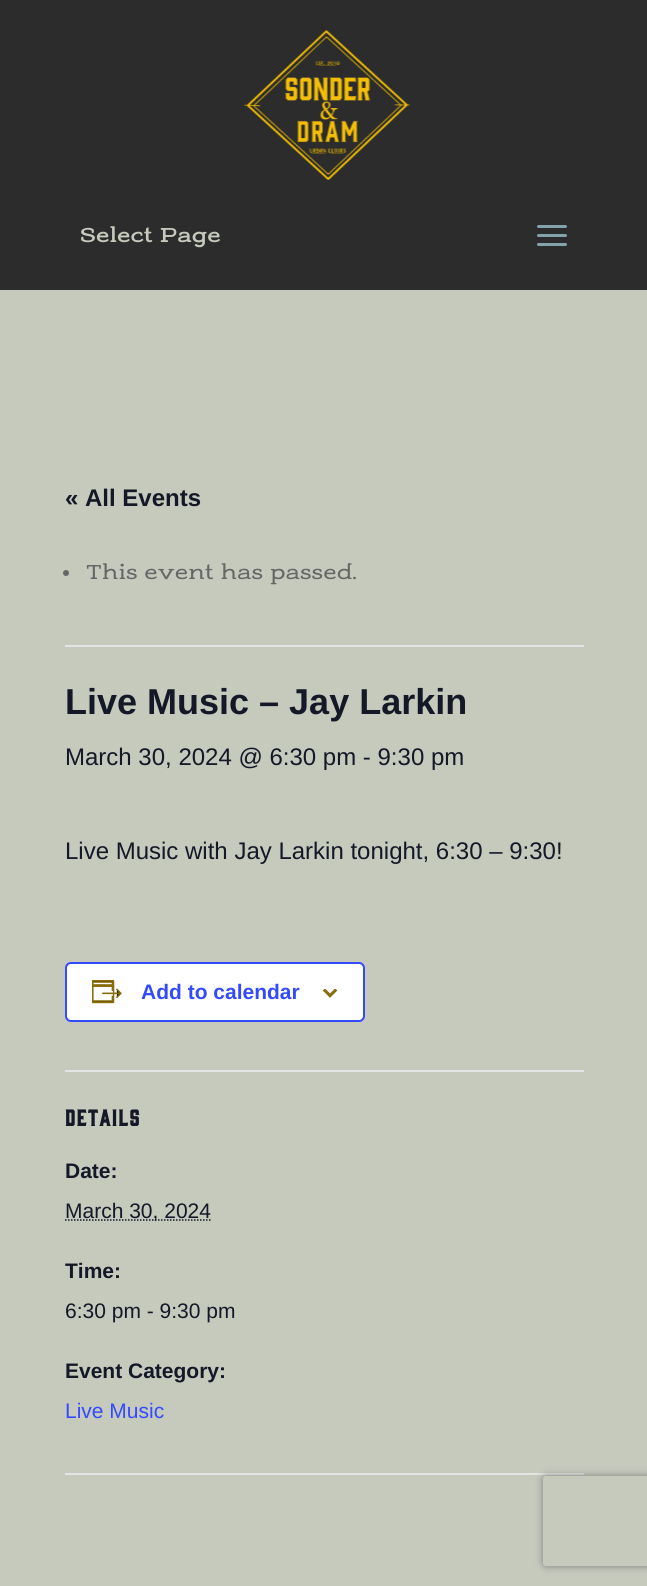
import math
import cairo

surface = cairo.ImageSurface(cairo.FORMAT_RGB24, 647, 1586)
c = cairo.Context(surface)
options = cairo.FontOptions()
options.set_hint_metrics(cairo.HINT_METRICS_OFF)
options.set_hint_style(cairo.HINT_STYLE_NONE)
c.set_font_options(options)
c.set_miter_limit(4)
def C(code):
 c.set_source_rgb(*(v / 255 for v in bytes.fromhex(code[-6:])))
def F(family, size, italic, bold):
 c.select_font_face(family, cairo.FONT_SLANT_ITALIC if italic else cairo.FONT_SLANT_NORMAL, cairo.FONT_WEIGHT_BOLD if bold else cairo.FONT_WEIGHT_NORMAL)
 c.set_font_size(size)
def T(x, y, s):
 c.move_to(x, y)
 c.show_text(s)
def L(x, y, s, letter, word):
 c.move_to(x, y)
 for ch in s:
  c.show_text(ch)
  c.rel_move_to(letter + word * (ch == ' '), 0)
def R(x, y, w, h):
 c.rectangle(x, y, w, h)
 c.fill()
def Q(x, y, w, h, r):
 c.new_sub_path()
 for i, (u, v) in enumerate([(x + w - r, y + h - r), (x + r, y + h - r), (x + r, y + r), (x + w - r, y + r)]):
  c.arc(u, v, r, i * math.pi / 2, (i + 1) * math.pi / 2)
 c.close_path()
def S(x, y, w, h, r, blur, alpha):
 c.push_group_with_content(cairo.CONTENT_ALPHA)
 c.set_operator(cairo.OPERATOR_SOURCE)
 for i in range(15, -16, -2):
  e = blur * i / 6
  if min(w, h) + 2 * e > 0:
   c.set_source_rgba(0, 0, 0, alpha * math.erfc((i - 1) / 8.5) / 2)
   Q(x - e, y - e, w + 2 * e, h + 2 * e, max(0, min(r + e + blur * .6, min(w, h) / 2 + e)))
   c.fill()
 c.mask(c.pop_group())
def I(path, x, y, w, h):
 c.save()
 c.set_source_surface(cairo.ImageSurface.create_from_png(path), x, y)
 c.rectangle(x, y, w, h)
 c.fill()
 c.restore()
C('c5cabd')
c.paint()
C('2c2c2c')
R(0,0,647,290)
I('1.png',244,30,166,150)
F('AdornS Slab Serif',21,0,1)
C('c5cabd')
T(80,242,'Select Page')
I('2.png',537,225,30,21)
F('Liberation Sans',24,0,1)
C('141827')
T(65,506,'« All Events')
C('e4e4e4')
R(65,645,519,2)
C('666666')
c.new_path()
c.arc(66,573,3,0,2 * math.pi)
c.fill()
F('AdornS Slab Serif',21,0,0)
T(86,579,'This event has passed.')
F('Liberation Sans',36,0,1)
C('141827')
T(65,714,'Live Music – Jay Larkin')
F('Liberation Sans',24,0,0)
T(65,765,'March 30, 2024 @ 6:30 pm - 9:30 pm')
T(65,859,'Live Music with Jay Larkin tonight, 6:30 – 9:30!')
C('ffffff')
Q(66,963,298,58,5)
c.fill_preserve()
C('334aff')
c.stroke()
I('3.png',92,980,30,24)
F('Liberation Sans',21,0,1)
T(141,999,'Add to calendar')
I('4.png',323,989,15,9)
C('e4e4e4')
R(65,1070,519,2)
F('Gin',21,0,1)
C('141827')
L(65,1126,'DETAILS',1.5,0)
F('Liberation Sans',21,0,1)
T(65,1178,'Date:')
c.new_path()
c.move_to(65,1220)
c.line_to(211,1220)
c.set_line_width(1.5)
c.set_dash([1.5,1.5])
c.stroke()
F('Liberation Sans',21,0,0)
T(65,1218,'March 30, 2024')
F('Liberation Sans',21,0,1)
T(65,1278,'Time:')
F('Liberation Sans',21,0,0)
T(65,1318,'6:30 pm - 9:30 pm')
F('Liberation Sans',21,0,1)
T(65,1378,'Event Category:')
F('Liberation Sans',21,0,0)
C('334aff')
T(65,1418,'Live Music')
C('e4e4e4')
R(65,1473,519,2)
c.save()
c.set_fill_rule(cairo.FILL_RULE_EVEN_ODD)
c.new_path()
c.move_to(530,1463)
c.line_to(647,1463)
c.line_to(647,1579)
c.line_to(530,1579)
c.close_path()
c.move_to(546,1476)
c.line_to(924,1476)
c.curve_to(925.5,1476,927,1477.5,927,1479)
c.line_to(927,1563)
c.curve_to(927,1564.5,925.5,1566,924,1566)
c.line_to(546,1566)
c.curve_to(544.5,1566,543,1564.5,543,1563)
c.line_to(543,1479)
c.curve_to(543,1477.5,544.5,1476,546,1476)
c.close_path()
c.clip()
C('808080')
S(543,1476,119,90,3,4,1)
c.restore()
surface.write_to_png('o.png')
